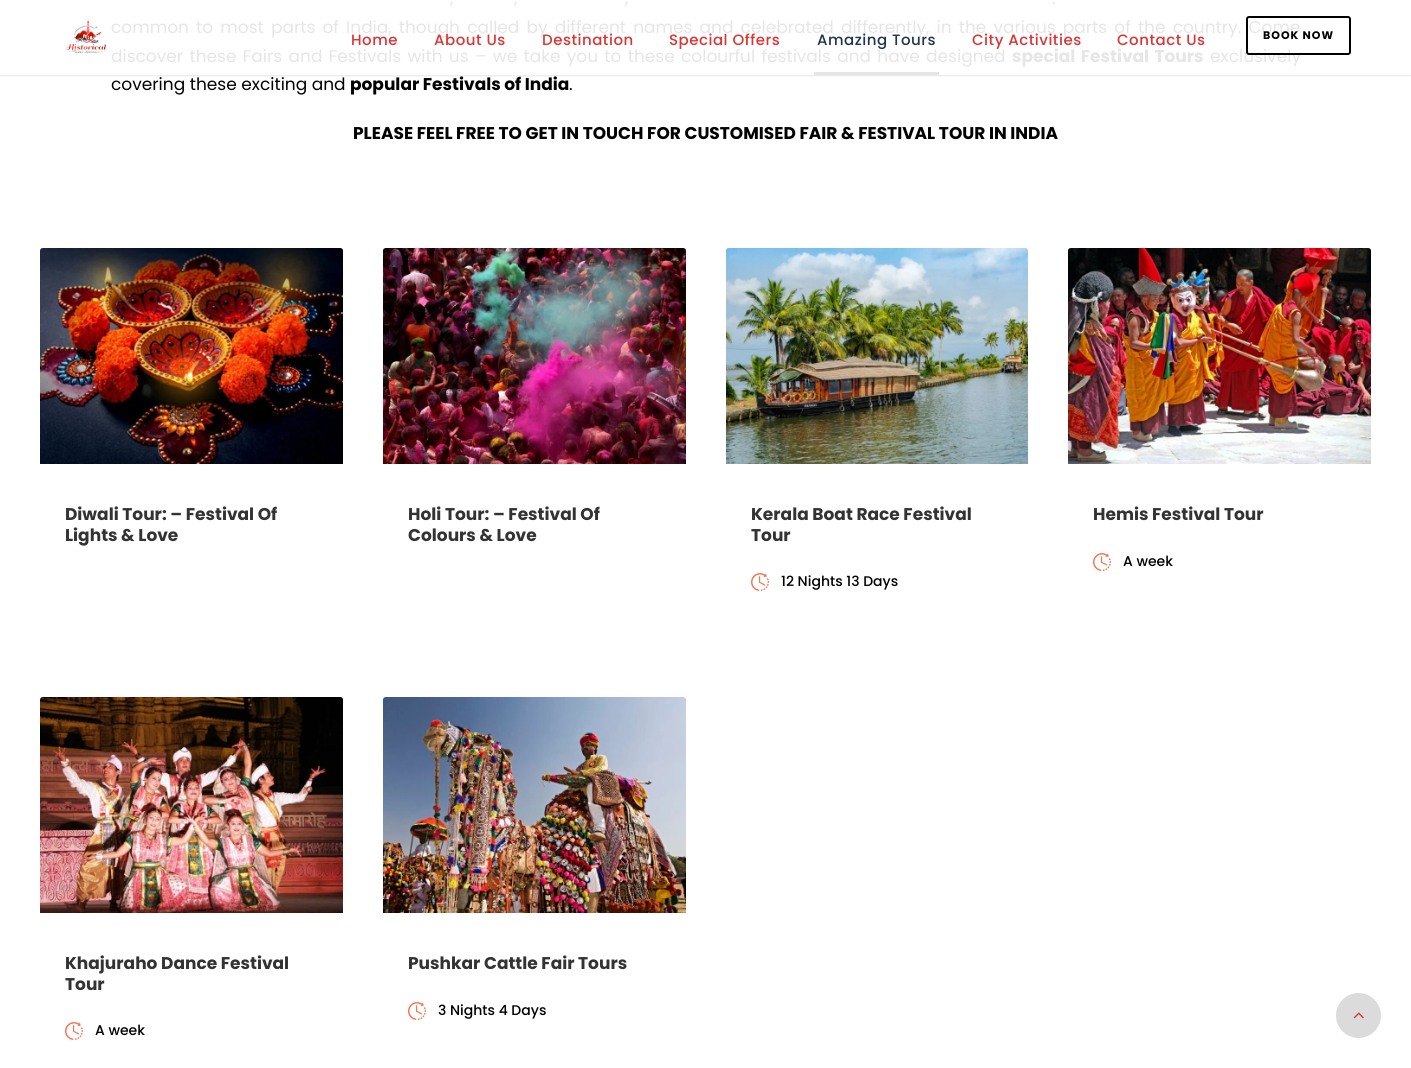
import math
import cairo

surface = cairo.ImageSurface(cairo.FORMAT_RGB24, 1411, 1068)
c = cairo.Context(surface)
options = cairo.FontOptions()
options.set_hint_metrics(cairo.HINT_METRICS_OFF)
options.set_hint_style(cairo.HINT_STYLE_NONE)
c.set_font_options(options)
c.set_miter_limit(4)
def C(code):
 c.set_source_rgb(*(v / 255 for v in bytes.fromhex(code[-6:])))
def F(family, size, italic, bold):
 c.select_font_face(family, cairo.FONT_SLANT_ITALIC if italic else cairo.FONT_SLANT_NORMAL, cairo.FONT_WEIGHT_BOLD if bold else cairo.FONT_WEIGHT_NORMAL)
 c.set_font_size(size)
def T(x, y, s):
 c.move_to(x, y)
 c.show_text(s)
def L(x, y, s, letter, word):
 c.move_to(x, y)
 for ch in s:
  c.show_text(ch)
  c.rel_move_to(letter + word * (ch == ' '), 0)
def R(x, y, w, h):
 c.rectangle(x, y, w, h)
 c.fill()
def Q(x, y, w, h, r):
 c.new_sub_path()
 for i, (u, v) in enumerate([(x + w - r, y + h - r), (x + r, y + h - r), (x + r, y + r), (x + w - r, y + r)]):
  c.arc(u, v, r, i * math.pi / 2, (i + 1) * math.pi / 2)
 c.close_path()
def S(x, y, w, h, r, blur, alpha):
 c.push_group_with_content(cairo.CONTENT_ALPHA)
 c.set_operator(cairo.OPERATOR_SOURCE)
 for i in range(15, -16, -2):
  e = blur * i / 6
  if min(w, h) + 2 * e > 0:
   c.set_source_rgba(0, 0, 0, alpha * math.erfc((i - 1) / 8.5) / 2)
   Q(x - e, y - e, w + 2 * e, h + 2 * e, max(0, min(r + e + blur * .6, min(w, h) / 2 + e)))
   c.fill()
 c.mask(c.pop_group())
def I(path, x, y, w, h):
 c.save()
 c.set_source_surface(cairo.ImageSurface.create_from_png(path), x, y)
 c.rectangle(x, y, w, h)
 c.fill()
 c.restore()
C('ffffff')
c.paint()
F('Poppins',17,0,0)
C('e6e6e6')
L(450,4,',',0,3)
L(514,4,',',0,3)
L(625,4,',',0,3)
L(1052,4,'.',0,3)
L(111,33,'common to most parts of India, though called by different names and celebrated differently, in the various parts of the country. Come',0,2.6)
L(111,62,'discover these Fairs and Festivals with us – we take you to these colourful festivals and have designed',0,1.75)
F('Poppins',17,0,1)
L(1012,62,'special Festival Tours',0,1.75)
F('Poppins',17,0,0)
T(1210,62,'exclusively')
C('000000')
T(111,90,'covering these exciting and')
F('Poppins',17,0,1)
T(350,90,'popular Festivals of India')
F('Poppins',17,0,0)
T(569,90,'.')
F('Poppins',17,0,1)
T(353,139,'PLEASE FEEL FREE TO GET IN TOUCH FOR CUSTOMISED FAIR & FESTIVAL TOUR IN INDIA')
I('1.png',40,248,303,216)
C('333333')
T(65,520,'Diwali Tour: – Festival Of')
T(65,541,'Lights & Love')
I('2.png',383,248,303,216)
T(408,520,'Holi Tour: – Festival Of')
T(408,541,'Colours & Love')
I('3.png',726,248,302,216)
T(751,520,'Kerala Boat Race Festival')
T(751,541,'Tour')
I('4.png',751,573,18,18)
F('Poppins Medium',14,0,0)
C('000000')
T(781,586,'12 Nights 13 Days')
I('5.png',1068,248,303,216)
F('Poppins',17,0,1)
C('333333')
T(1093,520,'Hemis Festival Tour')
I('4.png',1093,553,18,18)
F('Poppins Medium',14,0,0)
C('000000')
T(1123,566,'A week')
I('6.png',40,697,303,216)
F('Poppins',17,0,1)
C('333333')
T(65,969,'Khajuraho Dance Festival')
T(65,990,'Tour')
I('4.png',65,1022,18,18)
F('Poppins Medium',14,0,0)
C('000000')
T(95,1035,'A week')
I('7.png',383,697,303,216)
F('Poppins',17,0,1)
C('333333')
T(408,969,'Pushkar Cattle Fair Tours')
I('4.png',408,1002,18,18)
F('Poppins Medium',14,0,0)
C('000000')
T(438,1015,'3 Nights 4 Days')
c.save()
c.rectangle(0,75,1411,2)
c.clip()
C('000000')
S(0,1,1411,75,0,1,.1)
c.restore()
I('8.png',66,20,41,34)
F('Poppins Medium',15,0,0)
C('dd3333')
L(351,45,'Home',.5,0)
L(434,45,'About Us',.5,0)
L(542,45,'Destination',.5,0)
L(669,45,'Special Offers',.5,0)
C('1e354c')
L(817,45,'Amazing Tours',.5,0)
C('dd3333')
L(972,45,'City Activities',.5,0)
L(1117,45,'Contact Us',.5,0)
C('e5e5e5')
R(814,72,125,3)
Q(1247,17,103,37,2)
C('000000')
c.stroke()
F('Poppins',11,0,1)
L(1263,39,'BOOK NOW',1,0)
C('dbdbdb')
c.new_path()
c.arc(1358.5,1015.5,22.5,0,2 * math.pi)
c.fill()
I('9.png',1353,1012,11,7)
surface.write_to_png('o.png')
